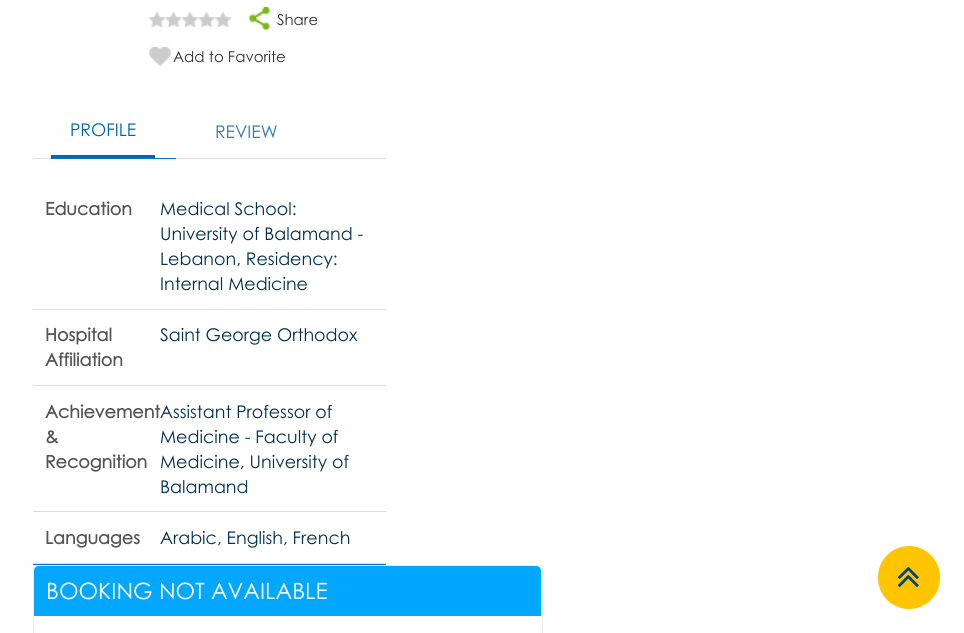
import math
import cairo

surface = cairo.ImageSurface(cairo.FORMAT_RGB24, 964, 633)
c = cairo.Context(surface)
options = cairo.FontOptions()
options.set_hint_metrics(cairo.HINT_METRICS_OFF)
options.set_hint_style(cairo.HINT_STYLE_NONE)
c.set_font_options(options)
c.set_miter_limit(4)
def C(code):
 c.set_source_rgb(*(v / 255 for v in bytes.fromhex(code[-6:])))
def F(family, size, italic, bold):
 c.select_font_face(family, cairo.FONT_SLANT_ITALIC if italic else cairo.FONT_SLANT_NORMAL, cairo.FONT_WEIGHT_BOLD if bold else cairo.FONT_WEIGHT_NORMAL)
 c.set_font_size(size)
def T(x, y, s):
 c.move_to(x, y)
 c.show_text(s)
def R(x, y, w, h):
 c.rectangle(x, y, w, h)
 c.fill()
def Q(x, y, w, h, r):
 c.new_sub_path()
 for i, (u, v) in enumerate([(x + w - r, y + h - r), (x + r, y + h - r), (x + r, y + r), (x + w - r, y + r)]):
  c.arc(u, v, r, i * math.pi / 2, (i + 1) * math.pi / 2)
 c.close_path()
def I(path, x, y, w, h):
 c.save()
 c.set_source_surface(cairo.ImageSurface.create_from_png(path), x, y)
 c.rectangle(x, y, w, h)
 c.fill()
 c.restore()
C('ffffff')
c.paint()
I('1.png',148,12,84,15)
I('2.png',248,7,23,23)
F('Century Gothic',15,0,0)
C('333333')
T(277,25,'Share')
I('3.png',148,47,24,19)
T(173,62,'Add to Favorite')
C('dddddd')
R(33,158,353,1)
C('0079c1')
R(51,158,125,1)
C('0066b3')
R(51,155,104,3)
F('Century Gothic',17.5,0,0)
C('0066b2')
T(70,136,'PROFILE')
C('337ab7')
T(215,138,'REVIEW')
C('0079c1')
R(33,564,353,1)
C('dddddd')
R(33,309,353,1)
F('Century Gothic',17.5,0,1)
C('545454')
T(45,215,'Education')
F('Century Gothic',17.5,0,0)
C('003052')
T(160,215,'Medical School:')
T(160,240,'University of Balamand -')
T(160,265,'Lebanon, Residency:')
T(160,290,'Internal Medicine')
C('dddddd')
R(33,385,353,1)
F('Century Gothic',17.5,0,1)
C('545454')
T(45,341,'Hospital')
T(45,366,'Affiliation')
F('Century Gothic',17.5,0,0)
C('003052')
T(160,341,'Saint George Orthodox')
C('dddddd')
R(33,511,353,1)
F('Century Gothic',17.5,0,1)
C('545454')
T(45,418,'Achievement')
T(45,443,'&')
T(45,468,'Recognition')
F('Century Gothic',17.5,0,0)
C('003052')
T(160,418,'Assistant Professor of')
T(160,443,'Medicine - Faculty of')
T(160,468,'Medicine, University of')
T(160,493,'Balamand')
C('dddddd')
R(33,563,353,1)
F('Century Gothic',17.5,0,1)
C('545454')
T(45,544,'Languages')
F('Century Gothic',17.5,0,0)
C('003052')
T(160,544,'Arabic, English, French')
Q(33.5,565.5,509,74,5.5)
C('eaedf2')
c.set_line_width(1)
c.stroke()
C('04a7ff')
c.new_path()
c.move_to(39,566)
c.line_to(536,566)
c.curve_to(539,566,541,568,541,571)
c.line_to(541,616)
c.line_to(34,616)
c.line_to(34,571)
c.curve_to(34,568,36,566,39,566)
c.close_path()
c.fill()
F('Century Gothic',22.5,0,0)
C('ffffff')
T(46,599,'BOOKING NOT AVAILABLE')
C('ffc500')
Q(878,546,62,63,31)
c.fill()
I('4.png',897,566,22,21)
surface.write_to_png('o.png')
